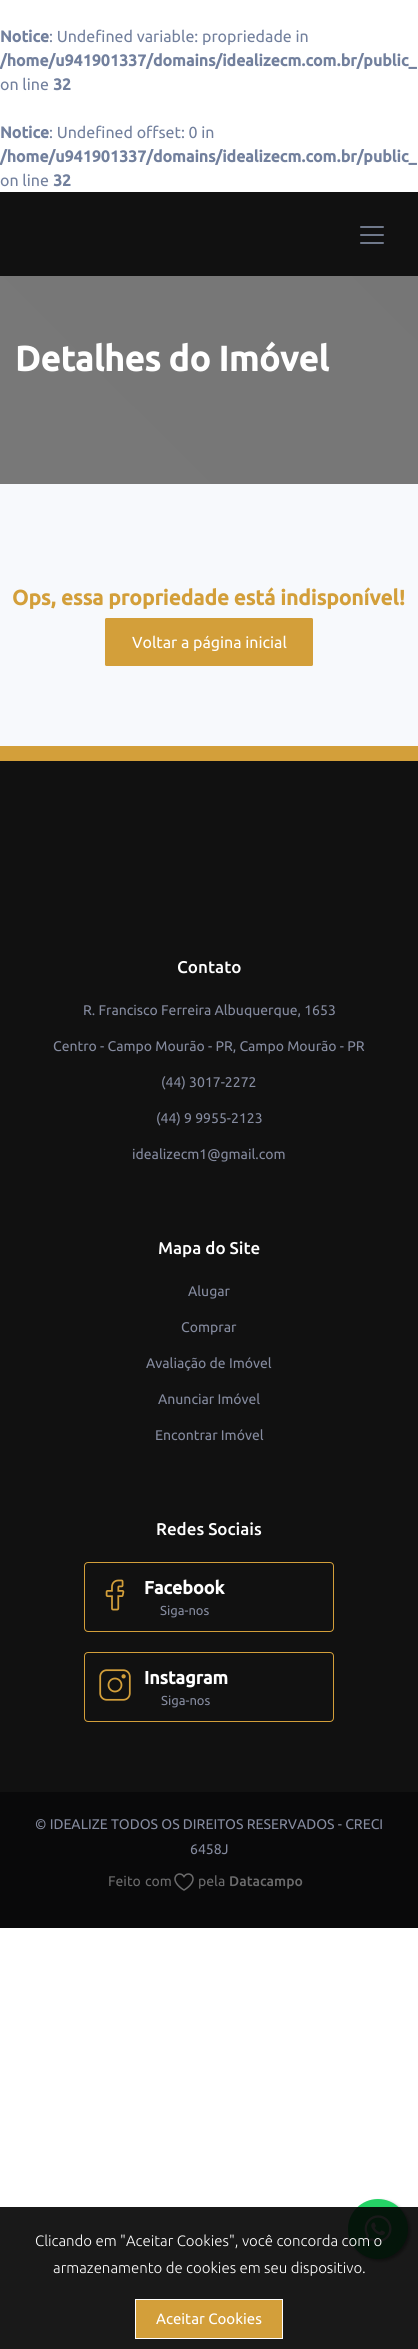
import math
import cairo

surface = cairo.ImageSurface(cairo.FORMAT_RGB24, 418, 2349)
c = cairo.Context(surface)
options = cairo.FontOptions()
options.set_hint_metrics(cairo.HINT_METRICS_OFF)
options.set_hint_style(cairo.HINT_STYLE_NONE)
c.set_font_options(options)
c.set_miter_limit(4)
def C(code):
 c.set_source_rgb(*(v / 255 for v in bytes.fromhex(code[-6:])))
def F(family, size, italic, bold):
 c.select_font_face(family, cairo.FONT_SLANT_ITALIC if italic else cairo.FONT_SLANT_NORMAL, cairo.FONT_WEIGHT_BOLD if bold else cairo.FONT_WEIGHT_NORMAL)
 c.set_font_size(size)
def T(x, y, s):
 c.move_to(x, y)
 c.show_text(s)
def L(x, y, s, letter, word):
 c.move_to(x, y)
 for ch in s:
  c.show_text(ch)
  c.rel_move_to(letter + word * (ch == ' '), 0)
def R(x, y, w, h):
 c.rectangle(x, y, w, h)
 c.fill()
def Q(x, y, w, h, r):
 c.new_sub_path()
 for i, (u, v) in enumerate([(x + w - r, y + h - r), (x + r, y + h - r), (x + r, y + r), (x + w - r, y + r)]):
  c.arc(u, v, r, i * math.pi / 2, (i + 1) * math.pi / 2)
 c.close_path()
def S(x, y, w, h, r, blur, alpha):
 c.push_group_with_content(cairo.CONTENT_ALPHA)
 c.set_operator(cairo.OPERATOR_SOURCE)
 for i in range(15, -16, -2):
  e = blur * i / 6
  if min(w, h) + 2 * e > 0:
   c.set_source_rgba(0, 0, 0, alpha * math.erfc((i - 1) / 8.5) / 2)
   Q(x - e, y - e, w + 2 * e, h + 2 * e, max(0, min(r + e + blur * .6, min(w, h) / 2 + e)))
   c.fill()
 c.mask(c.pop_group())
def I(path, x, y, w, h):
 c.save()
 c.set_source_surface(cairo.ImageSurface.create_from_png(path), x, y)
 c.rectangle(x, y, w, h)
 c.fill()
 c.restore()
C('ffffff')
c.paint()
F('Ubuntu',16,0,1)
C('72809d')
T(0,42,'Notice')
F('Ubuntu',16,0,0)
T(49,42,': Undefined variable: propriedade in')
F('Ubuntu',16,0,1)
T(0,66,'/home/u941901337/domains/idealizecm.com.br/public_')
F('Ubuntu',16,0,0)
T(0,90,'on line')
F('Ubuntu',16,0,1)
T(53,90,'32')
T(0,138,'Notice')
F('Ubuntu',16,0,0)
T(49,138,': Undefined offset: 0 in')
F('Ubuntu',16,0,1)
T(0,162,'/home/u941901337/domains/idealizecm.com.br/public_')
F('Ubuntu',16,0,0)
T(0,186,'on line')
F('Ubuntu',16,0,1)
T(53,186,'32')
C('111111')
R(0,192,418,84)
C('70798b')
Q(360,242,24,2,1)
c.fill()
Q(360,234,24,2,1)
c.fill()
Q(360,226,24,2,1)
c.fill()
gradient = cairo.LinearGradient(32,516,387,160)
gradient.add_color_stop_rgba(0,0.471,0.471,0.471,1)
gradient.add_color_stop_rgba(1,0.463,0.463,0.463,1)
c.set_source(gradient)
R(0,276,418,208)
F('Ubuntu',35,0,1)
C('ffffff')
T(15,371,'Detalhes do Imóvel')
C('f7f9fc')
R(0,484,418,262)
F('Ubuntu',21,0,1)
C('d39f3a')
T(12,605,'Ops, essa propriedade está indisponível!')
Q(105,618,208,48,1.5)
c.fill()
F('Ubuntu',16,0,0)
C('ffffff')
T(132,648,'Voltar a página inicial')
C('111111')
R(0,761,418,1031)
C('d39f3a')
R(0,746,418,15)
F('Ubuntu Medium',17,0,0)
C('ffffff')
T(177,973,'Contato')
F('Ubuntu',14,0,0)
C('858b9f')
T(83,1015,'R. Francisco Ferreira Albuquerque, 1653')
T(53,1051,'Centro - Campo Mourão - PR, Campo Mourão - PR')
T(161,1087,'(44) 3017-2272')
T(156,1123,'(44) 9 9955-2123')
T(132,1159,'idealizecm1@gmail.com')
F('Ubuntu Medium',17,0,0)
C('ffffff')
T(158,1254,'Mapa do Site')
F('Ubuntu',14,0,0)
C('858b9f')
T(188,1296,'Alugar')
T(181,1332,'Comprar')
T(146,1368,'Avaliação de Imóvel')
T(158,1404,'Anunciar Imóvel')
T(155,1440,'Encontrar Imóvel')
F('Ubuntu Medium',17,0,0)
C('ffffff')
T(156,1535,'Redes Sociais')
Q(84.5,1562.5,249,69,3.5)
C('d39f3a')
c.set_line_width(1)
c.stroke()
I('1.png',105,1579,20,32)
F('Ubuntu',18,0,1)
C('ffffff')
T(144,1594,'Facebook')
F('Ubuntu',13,0,0)
C('858b9f')
T(160,1615,'Siga-nos')
Q(84.5,1652.5,249,69,3.5)
C('d39f3a')
c.stroke()
I('2.png',99,1669,32,32)
F('Ubuntu',18,0,1)
C('ffffff')
T(144,1684,'Instagram')
F('Ubuntu',13,0,0)
C('858b9f')
T(161,1705,'Siga-nos')
C('09090a')
R(0,1792,418,136)
F('Ubuntu',14,0,0)
C('858b9f')
T(35,1829,'© IDEALIZE TODOS OS DIREITOS RESERVADOS - CRECI')
T(190,1854,'6458J')
C('6b6b6c')
L(108,1886,'Feito com',0,1)
I('3.png',174,1873,20,18)
T(198,1886,'pela')
F('Ubuntu Medium',14,0,0)
T(229,1886,'Datacampo')
C('999999')
S(350,2201,60,60,30,1.5,1)
C('25d366')
c.arc(378,2229,30,0,2 * math.pi)
c.fill()
I('4.png',364,2215,28,28)
c.set_source_rgba(0,0,0,0.9)
R(0,2207,418,142)
F('Ubuntu Light',15,0,0)
C('ffffff')
T(35,2246,'Clicando em "Aceitar Cookies", você concorda com o')
T(53,2273,'armazenamento de cookies em seu dispositivo.')
C('d39f3a')
c.rectangle(135.5,2299.5,147,39)
c.fill_preserve()
C('ffffff')
c.stroke()
F('Ubuntu',15,0,0)
T(156,2324,'Aceitar Cookies')
surface.write_to_png('o.png')
